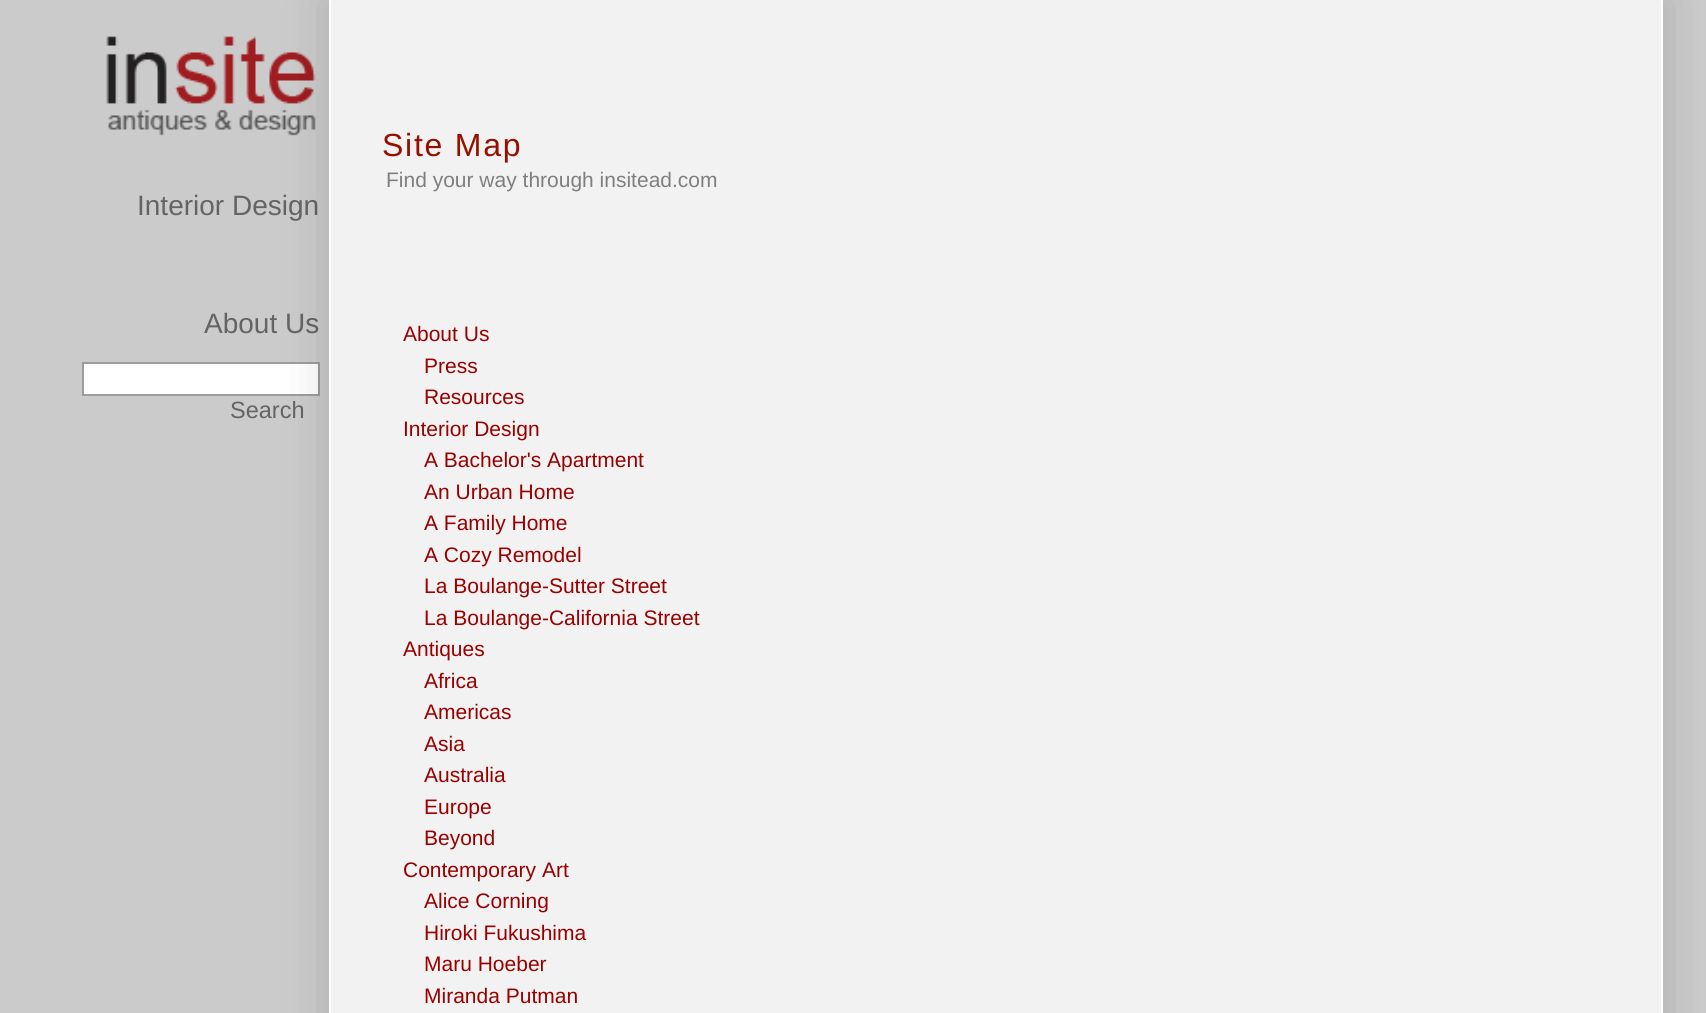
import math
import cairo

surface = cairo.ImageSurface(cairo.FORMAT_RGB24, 1706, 1013)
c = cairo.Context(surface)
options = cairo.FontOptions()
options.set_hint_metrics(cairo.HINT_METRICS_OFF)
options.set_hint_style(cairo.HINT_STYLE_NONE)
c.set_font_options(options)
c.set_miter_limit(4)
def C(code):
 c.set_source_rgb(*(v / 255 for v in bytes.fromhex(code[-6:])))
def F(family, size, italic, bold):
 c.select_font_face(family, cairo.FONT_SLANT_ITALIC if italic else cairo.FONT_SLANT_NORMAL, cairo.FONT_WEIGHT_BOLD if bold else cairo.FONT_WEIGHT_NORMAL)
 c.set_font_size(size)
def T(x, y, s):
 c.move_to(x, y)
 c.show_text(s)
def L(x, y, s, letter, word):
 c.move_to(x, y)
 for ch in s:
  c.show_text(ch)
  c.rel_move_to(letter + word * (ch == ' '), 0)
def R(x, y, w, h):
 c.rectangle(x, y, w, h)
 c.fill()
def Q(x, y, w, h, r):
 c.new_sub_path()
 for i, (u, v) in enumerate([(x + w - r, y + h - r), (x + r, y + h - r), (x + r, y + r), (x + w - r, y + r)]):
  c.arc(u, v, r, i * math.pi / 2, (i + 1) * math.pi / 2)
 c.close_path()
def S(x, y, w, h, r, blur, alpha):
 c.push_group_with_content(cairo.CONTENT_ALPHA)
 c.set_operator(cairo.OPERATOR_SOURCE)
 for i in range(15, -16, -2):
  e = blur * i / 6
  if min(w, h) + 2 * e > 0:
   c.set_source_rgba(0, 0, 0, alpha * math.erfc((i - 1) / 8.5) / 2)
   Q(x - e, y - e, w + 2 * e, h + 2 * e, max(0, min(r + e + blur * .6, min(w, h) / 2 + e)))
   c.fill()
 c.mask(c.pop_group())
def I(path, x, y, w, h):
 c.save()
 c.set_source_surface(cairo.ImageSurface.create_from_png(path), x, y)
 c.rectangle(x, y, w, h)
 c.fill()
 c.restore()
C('cbcbcb')
c.paint()
I('1.png',106,36,210,100)
F('Liberation Sans',28,0,0)
C('646464')
T(137,215,'Interior Design')
T(204,333,'About Us')
C('ffffff')
c.rectangle(83,363,236,32)
c.fill_preserve()
C('9d9d9d')
c.stroke()
F('Liberation Sans',23.5,0,0)
C('646464')
T(230,418,'Search')
c.save()
c.set_fill_rule(cairo.FILL_RULE_EVEN_ODD)
c.new_path()
c.move_to(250,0)
c.line_to(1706,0)
c.line_to(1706,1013)
c.line_to(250,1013)
c.close_path()
c.move_to(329,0)
c.line_to(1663,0)
c.line_to(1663,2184)
c.line_to(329,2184)
c.close_path()
c.clip()
C('000000')
S(329,0,1334,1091,0,26,.15)
c.restore()
c.set_source_rgba(1,1,1,0.75)
R(331,0,1330,1013)
C('ffffff')
R(1661,0,2,1013)
R(329,0,2,1013)
F('Liberation Sans',32,0,0)
C('941100')
L(382,156,'Site Map',1.75,0)
F('Liberation Sans',21,0,0)
C('7f7f7f')
T(386,187,'Find your way through insitead.com')
C('990000')
T(403,341,'About Us')
T(424,373,'Press')
T(424,404,'Resources')
T(403,436,'Interior Design')
T(424,467,'A Bachelor\'s Apartment')
T(424,499,'An Urban Home')
T(424,530,'A Family Home')
T(424,562,'A Cozy Remodel')
T(424,593,'La Boulange-Sutter Street')
T(424,625,'La Boulange-California Street')
T(403,656,'Antiques')
T(424,688,'Africa')
T(424,719,'Americas')
T(424,751,'Asia')
T(424,782,'Australia')
T(424,814,'Europe')
T(424,845,'Beyond')
T(403,877,'Contemporary Art')
T(424,908,'Alice Corning')
T(424,940,'Hiroki Fukushima')
T(424,971,'Maru Hoeber')
T(424,1003,'Miranda Putman')
surface.write_to_png('o.png')
